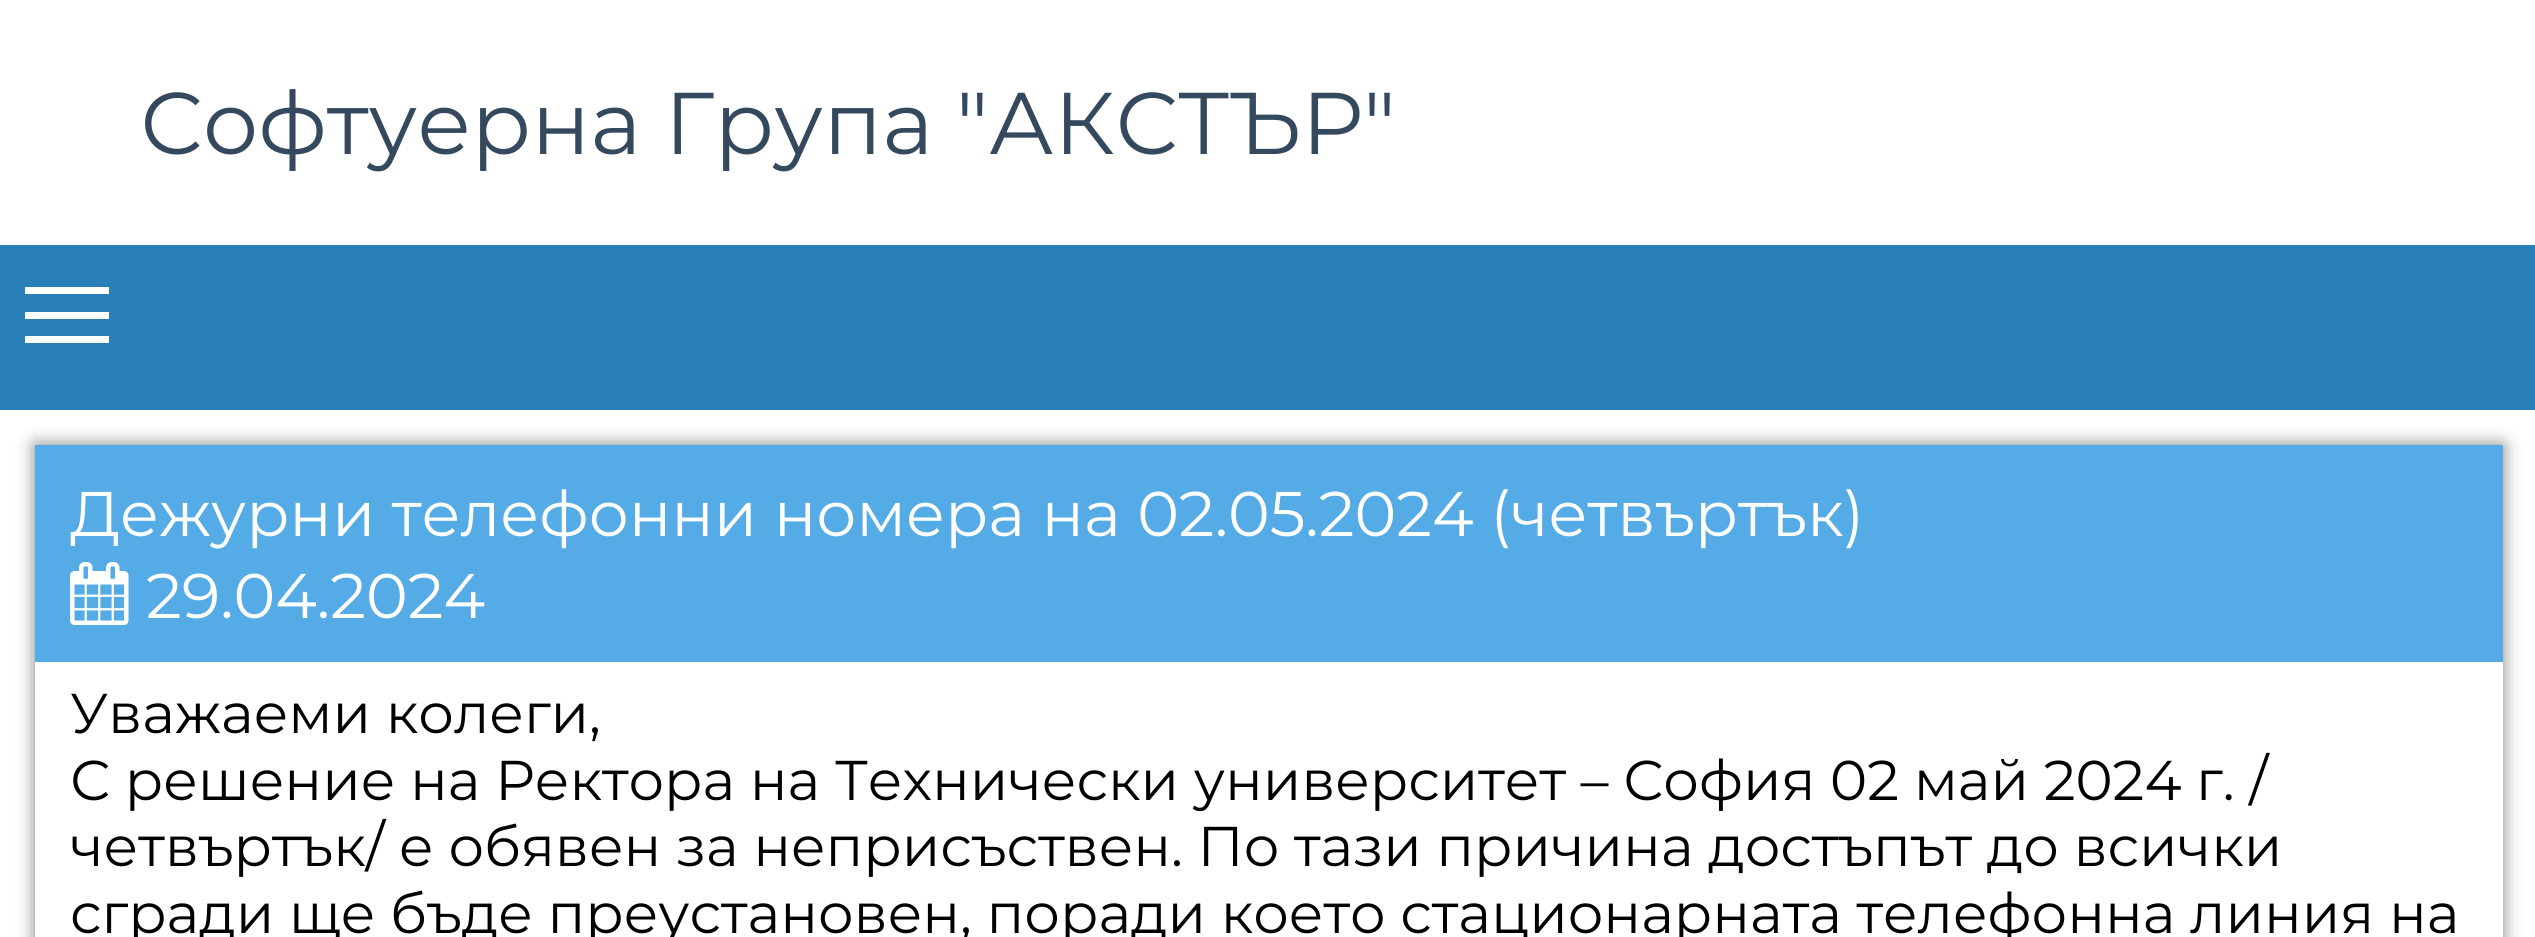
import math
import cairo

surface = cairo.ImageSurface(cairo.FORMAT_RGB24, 2535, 937)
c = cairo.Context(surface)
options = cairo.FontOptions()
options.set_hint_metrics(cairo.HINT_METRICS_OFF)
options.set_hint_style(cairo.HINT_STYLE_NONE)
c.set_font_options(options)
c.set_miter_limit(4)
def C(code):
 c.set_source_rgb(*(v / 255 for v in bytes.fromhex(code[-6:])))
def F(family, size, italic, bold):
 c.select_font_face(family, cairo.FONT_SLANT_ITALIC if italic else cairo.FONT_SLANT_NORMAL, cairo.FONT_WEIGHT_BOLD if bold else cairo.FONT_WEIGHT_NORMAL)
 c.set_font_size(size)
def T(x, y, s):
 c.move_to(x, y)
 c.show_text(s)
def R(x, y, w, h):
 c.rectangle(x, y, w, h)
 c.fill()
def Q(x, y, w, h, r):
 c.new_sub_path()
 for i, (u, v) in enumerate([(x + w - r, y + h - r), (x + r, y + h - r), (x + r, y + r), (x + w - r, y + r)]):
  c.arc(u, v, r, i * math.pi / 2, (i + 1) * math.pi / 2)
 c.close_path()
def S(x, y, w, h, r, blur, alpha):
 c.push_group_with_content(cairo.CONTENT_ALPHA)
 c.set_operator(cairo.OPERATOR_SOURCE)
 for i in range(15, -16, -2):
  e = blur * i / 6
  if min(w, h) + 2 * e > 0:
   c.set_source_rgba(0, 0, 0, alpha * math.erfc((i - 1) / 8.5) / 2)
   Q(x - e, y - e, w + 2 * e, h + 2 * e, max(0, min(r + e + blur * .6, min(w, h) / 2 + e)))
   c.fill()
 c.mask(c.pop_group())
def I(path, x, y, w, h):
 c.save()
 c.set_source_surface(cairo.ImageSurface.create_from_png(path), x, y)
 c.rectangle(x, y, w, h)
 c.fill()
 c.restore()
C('ffffff')
c.paint()
F('Montserrat',87.5,0,0)
C('34495e')
T(140,154,'Софтуерна Група "АКСТЪР"')
C('2980b9')
R(0,245,2535,165)
C('ffffff')
R(25,312,84,7)
R(25,287,84,7)
R(25,336,84,7)
c.save()
c.set_fill_rule(cairo.FILL_RULE_EVEN_ODD)
c.new_path()
c.move_to(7,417)
c.line_to(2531,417)
c.line_to(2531,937)
c.line_to(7,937)
c.close_path()
c.move_to(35,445)
c.line_to(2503,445)
c.line_to(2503,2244)
c.line_to(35,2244)
c.close_path()
c.clip()
C('000000')
S(35,445,2468,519,0,9,.5)
c.restore()
C('55abe6')
R(35,445,2468,217)
F('Montserrat',63,0,0)
C('ffffff')
T(70,536,'Дежурни телефонни номера на 02.05.2024 (четвъртък)')
I('1.png',70,562,59,63)
T(146,618,'29.04.2024')
F('Montserrat',56,0,0)
C('000000')
T(70,733,'Уважаеми колеги,')
T(70,800,'С решение на Ректора на Технически университет – София 02 май 2024 г. /')
T(70,866,'четвъртък/ е обявен за неприсъствен. По тази причина достъпът до всички')
T(70,933,'сгради ще бъде преустановен, поради което стационарната телефонна линия на')
surface.write_to_png('o.png')
